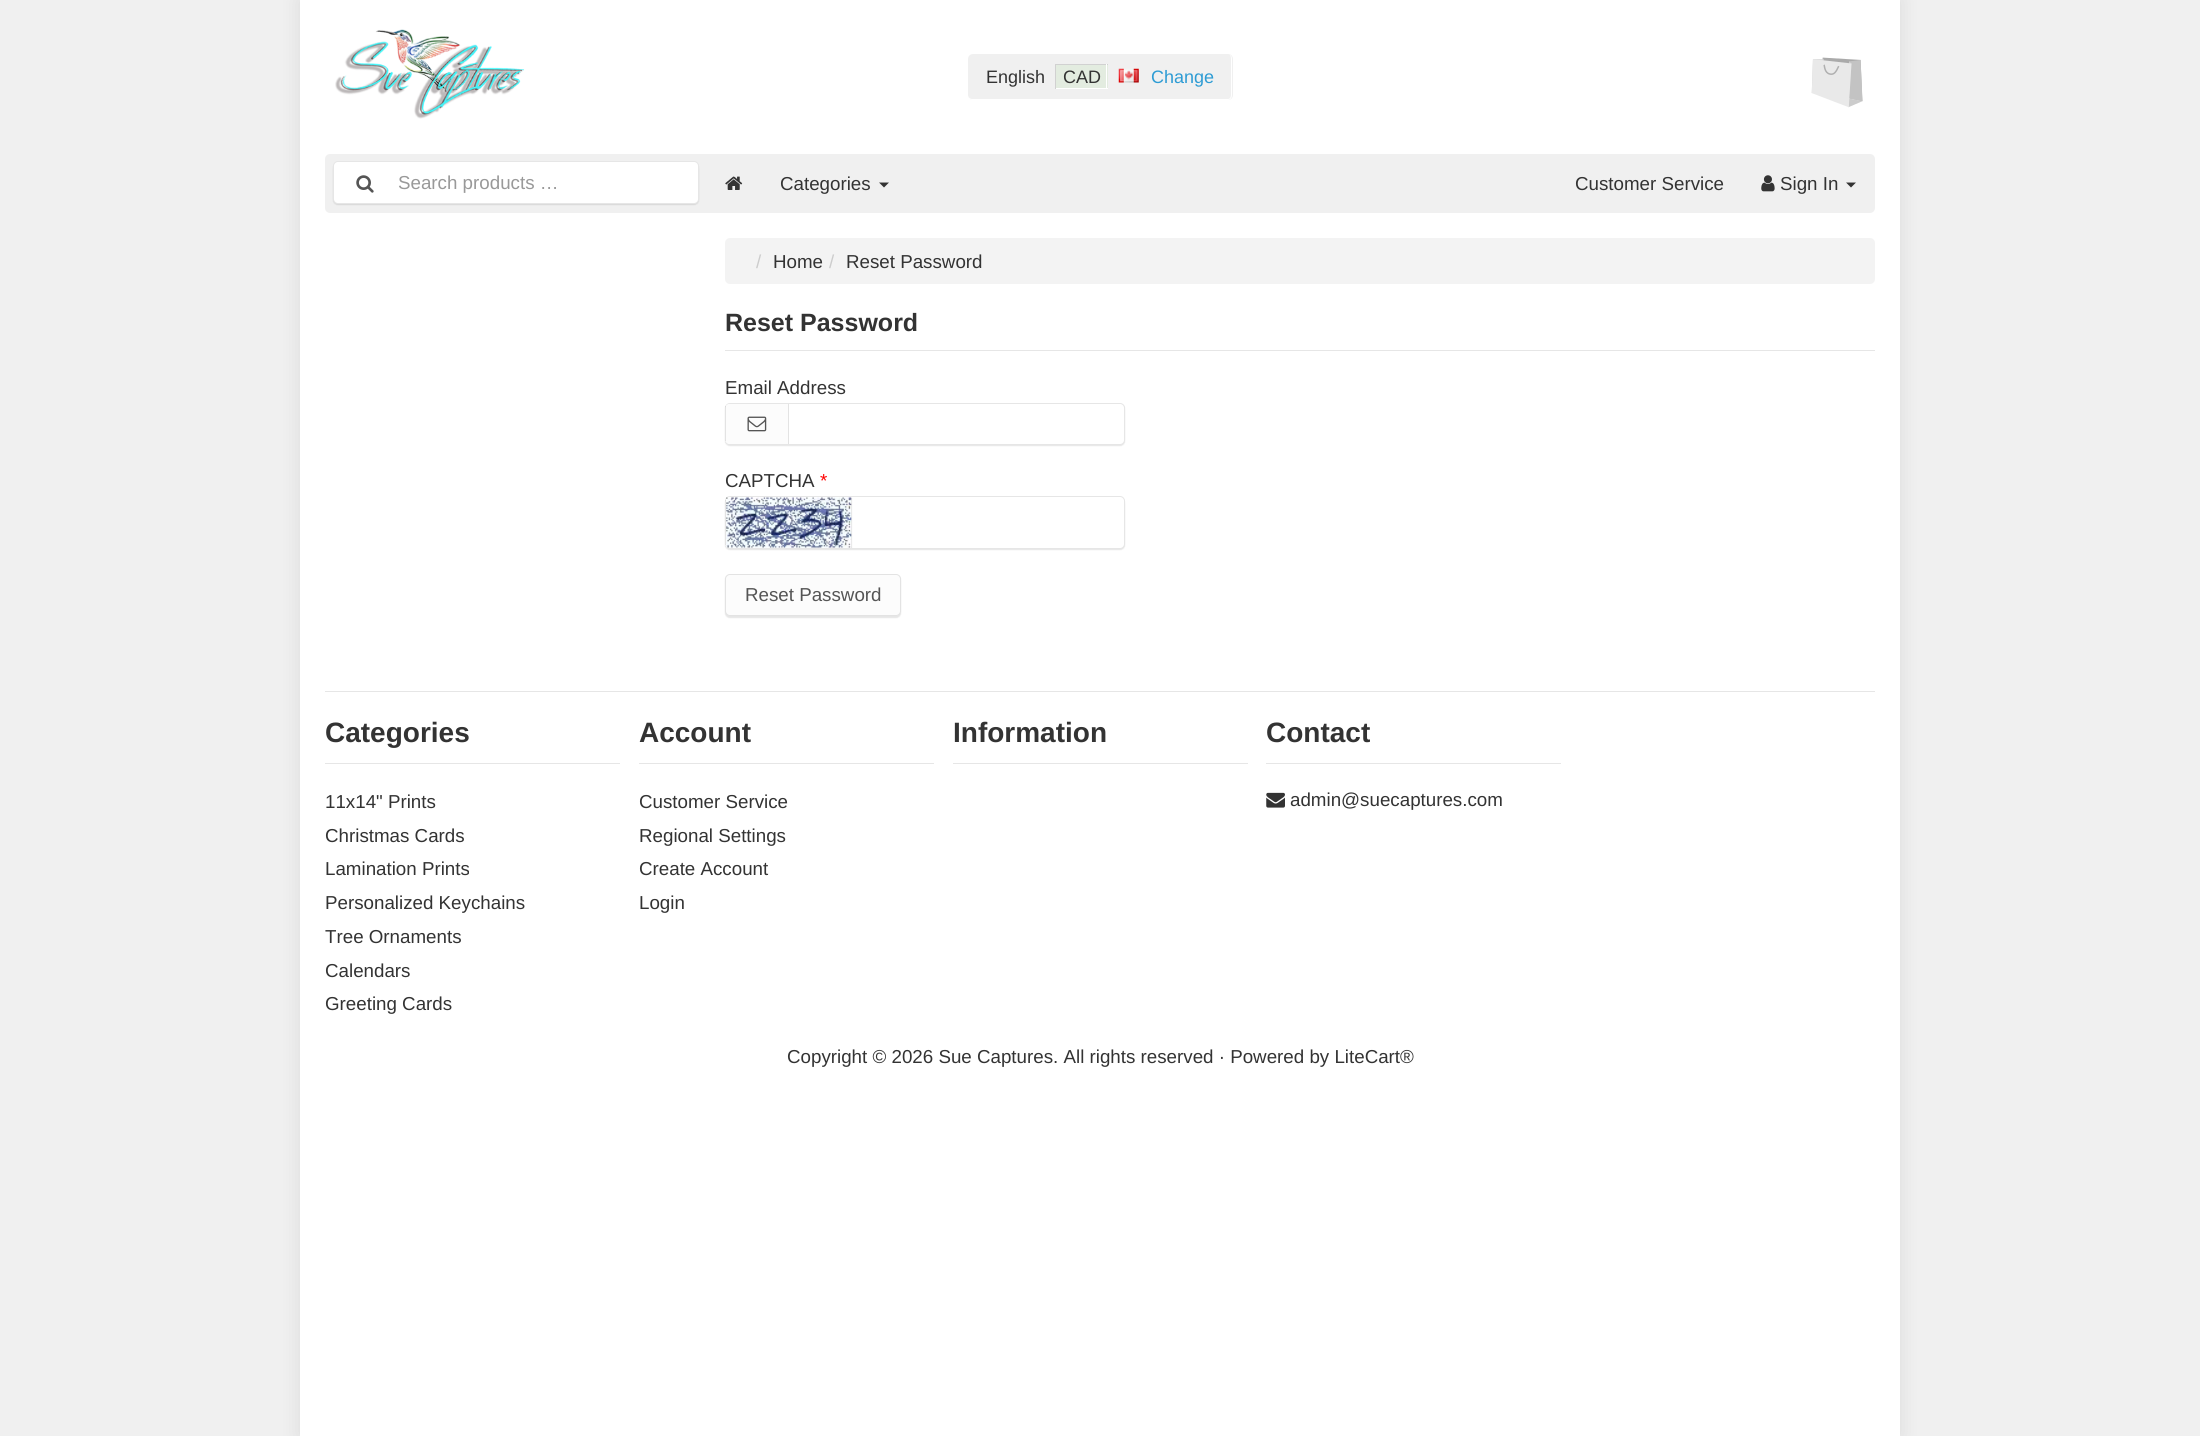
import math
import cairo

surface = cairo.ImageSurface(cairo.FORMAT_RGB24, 2200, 1436)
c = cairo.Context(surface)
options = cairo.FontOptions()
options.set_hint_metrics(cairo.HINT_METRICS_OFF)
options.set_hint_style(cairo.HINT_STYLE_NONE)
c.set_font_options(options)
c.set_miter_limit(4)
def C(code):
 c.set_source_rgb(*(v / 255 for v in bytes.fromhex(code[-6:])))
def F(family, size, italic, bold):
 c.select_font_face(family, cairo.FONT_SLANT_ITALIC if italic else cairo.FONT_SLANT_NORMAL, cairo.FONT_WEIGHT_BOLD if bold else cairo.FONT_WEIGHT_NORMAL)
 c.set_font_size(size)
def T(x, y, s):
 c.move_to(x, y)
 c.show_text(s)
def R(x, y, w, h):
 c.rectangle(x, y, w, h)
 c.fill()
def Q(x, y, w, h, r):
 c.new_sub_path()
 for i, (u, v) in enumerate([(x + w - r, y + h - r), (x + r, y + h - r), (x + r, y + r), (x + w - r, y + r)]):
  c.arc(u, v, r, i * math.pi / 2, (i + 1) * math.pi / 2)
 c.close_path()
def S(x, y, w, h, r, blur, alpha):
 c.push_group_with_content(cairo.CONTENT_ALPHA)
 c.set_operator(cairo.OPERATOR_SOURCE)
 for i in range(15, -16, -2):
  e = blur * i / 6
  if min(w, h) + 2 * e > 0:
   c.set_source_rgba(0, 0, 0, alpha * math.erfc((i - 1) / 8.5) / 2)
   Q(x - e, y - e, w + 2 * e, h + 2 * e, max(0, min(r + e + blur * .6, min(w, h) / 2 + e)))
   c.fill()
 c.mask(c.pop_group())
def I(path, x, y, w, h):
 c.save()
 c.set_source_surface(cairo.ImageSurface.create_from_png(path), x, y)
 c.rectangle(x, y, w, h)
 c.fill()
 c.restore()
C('f0f0f0')
c.paint()
C('000000')
S(300,0,1600,1436,0,9.5,.1)
C('ffffff')
R(300,0,1600,1436)
I('1.png',335,29,190,90)
C('f0f0f0')
Q(968,54,265,46,5)
c.fill()
C('ffffff')
c.set_fill_rule(cairo.FILL_RULE_EVEN_ODD)
c.new_path()
c.move_to(972,54)
c.line_to(1228,54)
c.curve_to(1230,54,1232,56,1232,59)
c.line_to(1232,95)
c.curve_to(1232,98,1230,100,1228,100)
c.line_to(972,100)
c.curve_to(970,100,968,98,968,95)
c.line_to(968,59)
c.curve_to(968,56,970,54,972,54)
c.close_path()
c.move_to(972,54)
c.line_to(1228,54)
c.curve_to(1230,54,1231,56,1231,59)
c.line_to(1231,95)
c.curve_to(1231,97,1230,99,1228,99)
c.line_to(972,99)
c.curve_to(970,99,968,97,968,95)
c.line_to(968,59)
c.curve_to(968,56,970,54,972,54)
c.close_path()
c.fill()
F('Liberation Sans',18,0,0)
C('333333')
T(986,83,'English')
C('e3ece0')
R(1056,65,52,23)
C('333333')
T(1063,83,'CAD')
C('d1d1d1')
R(1055,64,53,1)
C('ffffff')
R(1106,64,1,25)
R(1055,88,53,1)
C('d1d1d1')
R(1055,64,1,25)
I('2.png',1118,68,21,15)
C('2e9cd4')
T(1151,83,'Change')
I('3.png',1811,57,52,51)
C('f0f0f0')
Q(325,154,1550,59,5)
c.fill()
C('000000')
S(333,163,366,42,5,.5,.1)
C('ffffff')
Q(333,161,366,43,5)
c.fill()
Q(333.5,161.5,365,42,4.5)
c.set_source_rgba(0,0,0,0.1)
c.set_line_width(1)
c.stroke()
I('4.png',356,175,18,18)
F('Liberation Sans',18.75,0,0)
C('999999')
T(398,189,'Search products …')
I('5.png',725,176,18,14)
C('333333')
T(780,190,'Categories')
c.set_fill_rule(cairo.FILL_RULE_WINDING)
c.new_path()
c.move_to(879,182.5)
c.line_to(889,182.5)
c.line_to(884,187.5)
c.close_path()
c.fill()
T(1575,190,'Customer Service')
I('6.png',1761,175,14,17)
T(1780,190,'Sign In')
c.new_path()
c.move_to(1846,182.5)
c.line_to(1856,182.5)
c.line_to(1851,187.5)
c.close_path()
c.fill()
C('f3f3f3')
Q(725,238,1150,46,5)
c.fill()
C('cccccc')
T(756,268,'/')
C('333333')
T(773,268,'Home')
C('cccccc')
T(829,268,'/')
C('333333')
T(846,268,'Reset Password')
C('e6e6e6')
R(725,350,1150,1)
F('Liberation Sans',25,0,1)
C('333333')
T(725,331,'Reset Password')
F('Liberation Sans',18.75,0,0)
T(725,394,'Email Address')
C('000000')
S(725,404,400,42,5,.5,.1)
C('ffffff')
Q(725,403,400,42,5)
c.fill()
Q(725.5,403.5,399,41,4.5)
c.set_source_rgba(0,0,0,0.1)
c.stroke()
C('fcfcfc')
c.new_path()
c.move_to(730,404)
c.line_to(789,404)
c.line_to(789,444)
c.line_to(730,444)
c.curve_to(727,444,725,442,725,439)
c.line_to(725,409)
c.curve_to(725,406,727,404,730,404)
c.close_path()
c.fill()
C('e3e3e3')
R(788,404,1,40)
c.set_source_rgba(0,0,0,0.1)
R(725,406,1,35)
I('7.png',747,416,20,16)
C('333333')
T(725,487,'CAPTCHA')
C('ff0000')
T(820,487,'*')
C('000000')
S(725,498,400,52,5,.5,.1)
C('ffffff')
Q(725,496,400,53,5)
c.fill()
Q(725.5,496.5,399,52,4.5)
c.set_source_rgba(0,0,0,0.1)
c.stroke()
C('fcfcfc')
c.new_path()
c.move_to(730,498)
c.line_to(853,498)
c.line_to(853,548)
c.line_to(730,548)
c.curve_to(727,548,725,546,725,543)
c.line_to(725,503)
c.curve_to(725,500,727,498,730,498)
c.close_path()
c.fill()
C('e3e3e3')
R(851,498,1,50)
c.set_source_rgba(0,0,0,0.1)
R(725,500,1,45)
I('8.png',726,497,126,51)
C('000000')
S(725,575,176,43,5,.5,.1)
C('fcfcfc')
Q(725,574,176,42,5)
c.fill()
Q(725.5,574.5,175,41,4.5)
c.set_source_rgba(0,0,0,0.1)
c.stroke()
C('555555')
T(745,601,'Reset Password')
C('e6e6e6')
R(325,691,1550,1)
R(325,763,295,1)
F('Liberation Sans',28,0,1)
C('333333')
T(325,742,'Categories')
F('Liberation Sans',18.75,0,0)
T(325,808,'11x14" Prints')
T(325,842,'Christmas Cards')
T(325,875,'Lamination Prints')
T(325,909,'Personalized Keychains')
T(325,943,'Tree Ornaments')
T(325,977,'Calendars')
T(325,1010,'Greeting Cards')
C('e6e6e6')
R(639,763,295,1)
F('Liberation Sans',28,0,1)
C('333333')
T(639,742,'Account')
F('Liberation Sans',18.75,0,0)
T(639,808,'Customer Service')
T(639,842,'Regional Settings')
T(639,875,'Create Account')
T(639,909,'Login')
C('e6e6e6')
R(953,763,295,1)
F('Liberation Sans',28,0,1)
C('333333')
T(953,742,'Information')
C('e6e6e6')
R(1266,763,295,1)
C('333333')
T(1266,742,'Contact')
I('9.png',1266,792,19,16)
F('Liberation Sans',18.75,0,0)
T(1290,806,'admin@suecaptures.com')
T(787,1063,'Copyright © 2026 Sue Captures. All rights reserved · Powered by LiteCart®')
surface.write_to_png('o.png')
